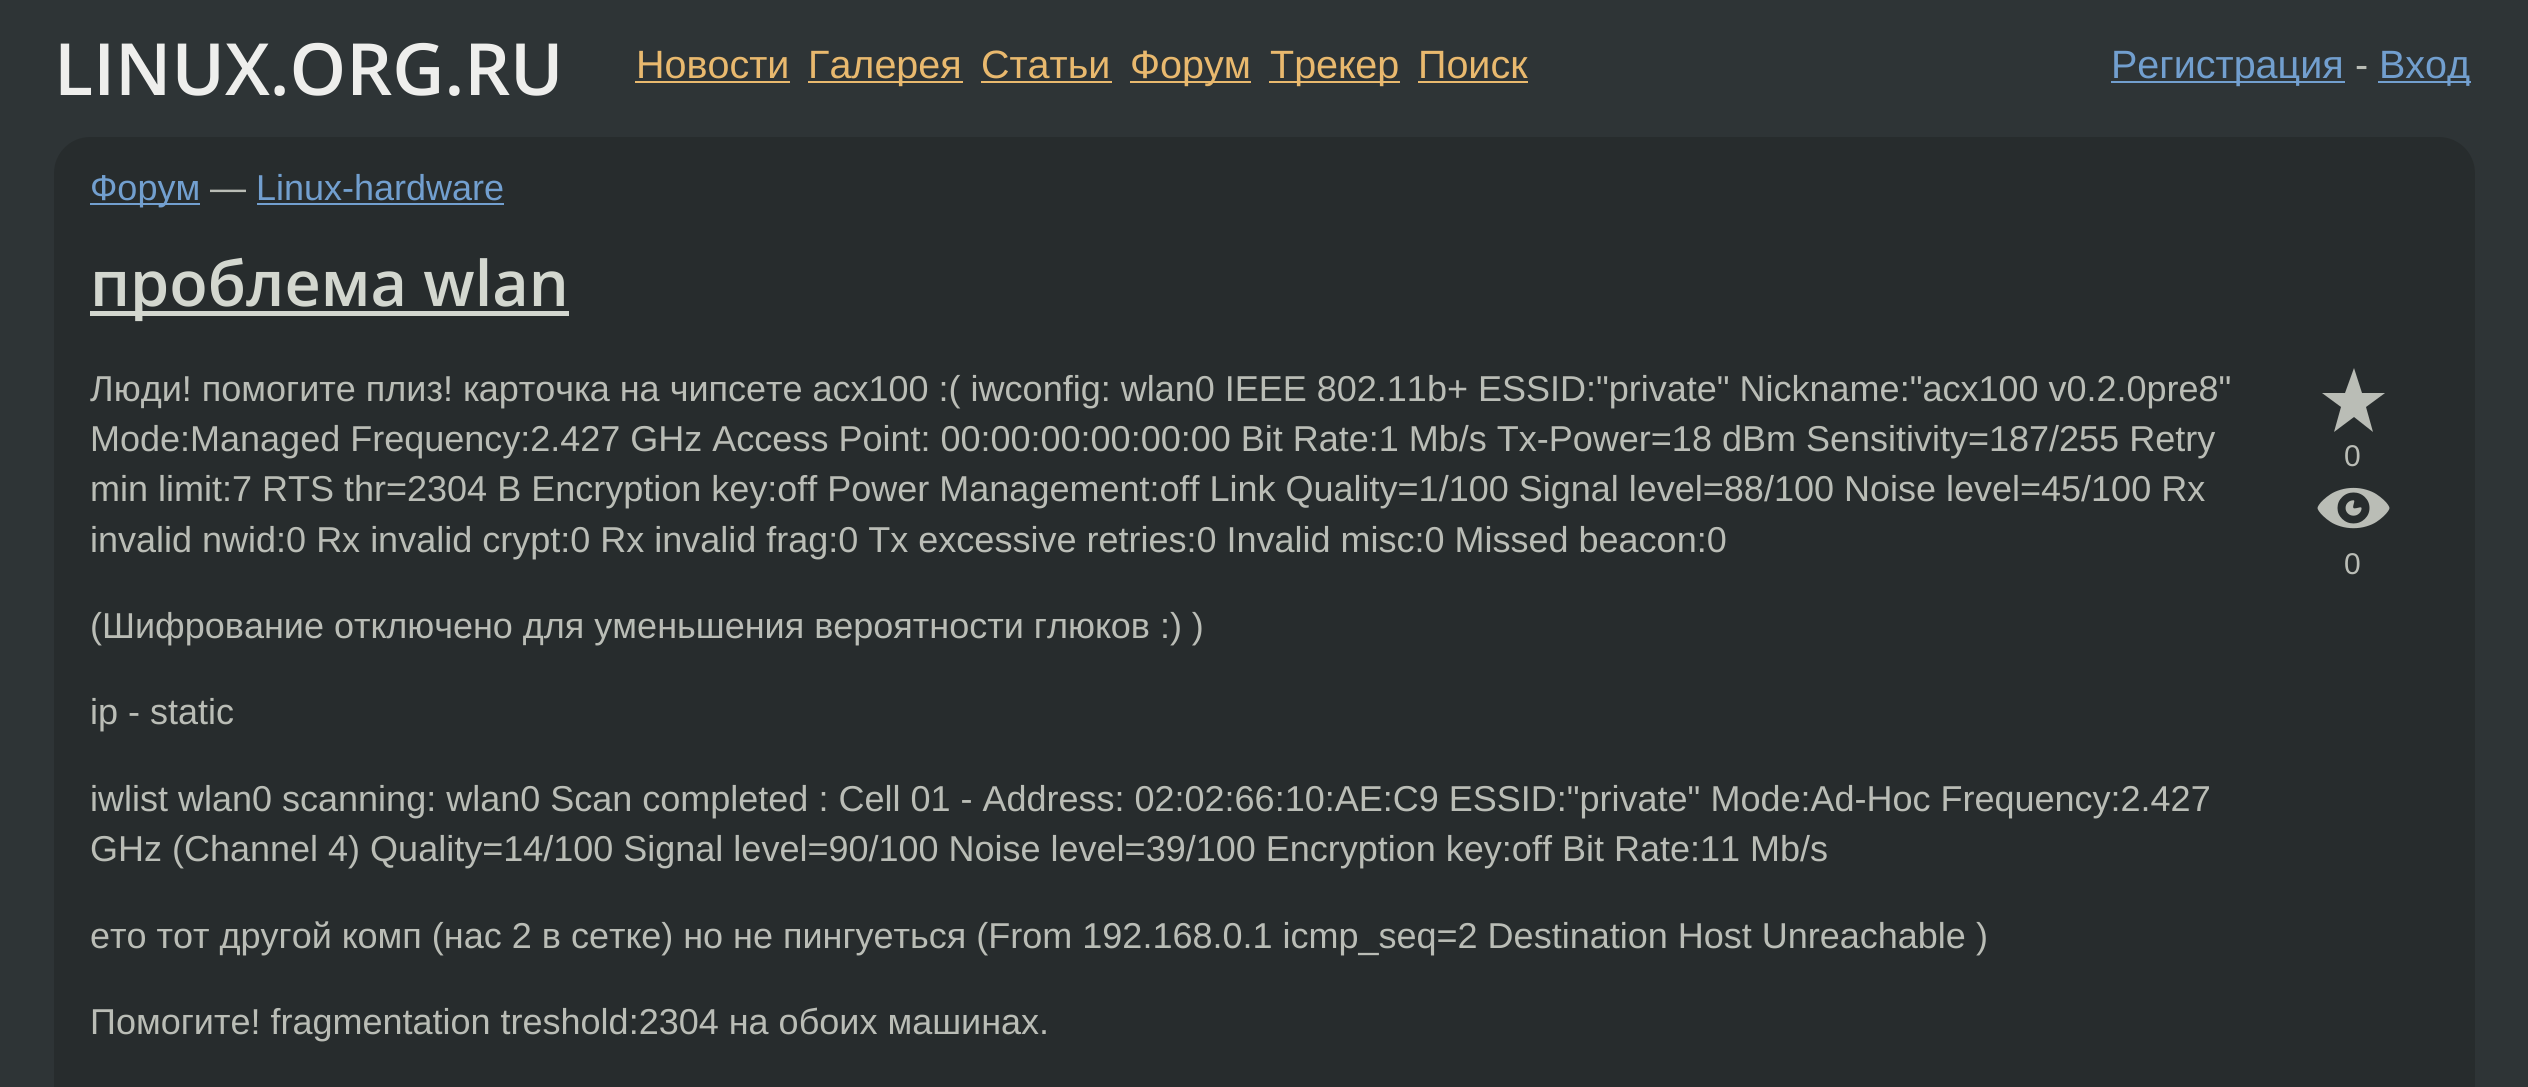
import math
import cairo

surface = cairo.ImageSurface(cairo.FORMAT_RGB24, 2528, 1087)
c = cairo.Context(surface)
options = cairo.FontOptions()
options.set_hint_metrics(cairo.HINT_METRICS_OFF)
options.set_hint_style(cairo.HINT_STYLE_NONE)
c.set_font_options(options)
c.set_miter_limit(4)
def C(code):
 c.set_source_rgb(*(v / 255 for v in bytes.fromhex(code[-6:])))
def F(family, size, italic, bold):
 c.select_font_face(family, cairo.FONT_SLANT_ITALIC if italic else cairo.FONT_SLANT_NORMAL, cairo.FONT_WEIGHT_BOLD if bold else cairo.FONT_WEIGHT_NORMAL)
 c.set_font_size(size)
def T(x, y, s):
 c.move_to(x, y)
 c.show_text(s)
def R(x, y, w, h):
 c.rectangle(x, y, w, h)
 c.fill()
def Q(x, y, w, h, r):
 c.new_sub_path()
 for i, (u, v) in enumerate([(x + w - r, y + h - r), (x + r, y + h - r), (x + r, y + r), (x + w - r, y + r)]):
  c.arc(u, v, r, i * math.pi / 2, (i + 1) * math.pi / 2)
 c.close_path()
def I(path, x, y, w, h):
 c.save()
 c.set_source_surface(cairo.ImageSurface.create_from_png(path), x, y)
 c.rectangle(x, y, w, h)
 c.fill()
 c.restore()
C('2e3436')
c.paint()
F('Open Sans SemiBold',72,0,0)
C('eeeeec')
T(54,95,'LINUX.ORG.RU')
F('Liberation Sans',39.5,0,0)
C('e9b96e')
T(636,78,'Новости')
R(635,81,155,2)
R(808,81,155,2)
T(808,78,'Галерея')
T(981,78,'Статьи')
R(981,81,131,2)
R(1130,81,121,2)
T(1130,78,'Форум')
R(1269,81,131,2)
T(1270,78,'Трекер')
T(1418,78,'Поиск')
R(1418,81,110,2)
C('729fcf')
R(2111,81,234,2)
T(2111,78,'Регистрация')
C('babdb6')
T(2355,78,'-')
C('729fcf')
R(2378,81,93,2)
T(2379,78,'Вход')
C('272c2d')
Q(54,137,2421,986,36)
c.fill()
C('729fcf')
R(90,203,110,2)
F('Liberation Sans',36,0,0)
T(90,200,'Форум')
C('babdb6')
T(210,200,'—')
C('729fcf')
T(256,200,'Linux-hardware')
R(257,203,247,2)
C('d3d7cf')
R(90,311,479,5)
F('Open Sans SemiBold',63,0,0)
T(90,306,'проблема wlan')
F('Liberation Sans',36,0,0)
C('babdb6')
T(90,401,'Люди! помогите плиз! карточка на чипсете acx100 :( iwconfig: wlan0 IEEE 802.11b+ ESSID:"private" Nickname:"acx100 v0.2.0pre8"')
T(90,451,'Mode:Managed Frequency:2.427 GHz Access Point: 00:00:00:00:00:00 Bit Rate:1 Mb/s Tx-Power=18 dBm Sensitivity=187/255 Retry')
T(90,501,'min limit:7 RTS thr=2304 B Encryption key:off Power Management:off Link Quality=1/100 Signal level=88/100 Noise level=45/100 Rx')
T(90,552,'invalid nwid:0 Rx invalid crypt:0 Rx invalid frag:0 Tx excessive retries:0 Invalid misc:0 Missed beacon:0')
T(90,638,'(Шифрование отключено для уменьшения вероятности глюков :) )')
T(90,724,'ip - static')
T(90,811,'iwlist wlan0 scanning: wlan0 Scan completed : Cell 01 - Address: 02:02:66:10:AE:C9 ESSID:"private" Mode:Ad-Hoc Frequency:2.427')
T(90,861,'GHz (Channel 4) Quality=14/100 Signal level=90/100 Noise level=39/100 Encryption key:off Bit Rate:11 Mb/s')
T(90,948,'ето тот другой комп (нас 2 в сетке) но не пингуеться (From 192.168.0.1 icmp_seq=2 Destination Host Unreachable )')
T(90,1034,'Помогите! fragmentation treshold:2304 на обоих машинах.')
c.new_path()
c.move_to(2354,368)
c.line_to(2362,393)
c.line_to(2385,393)
c.line_to(2366,407)
c.line_to(2373,432)
c.line_to(2354,417)
c.line_to(2334,432)
c.line_to(2341,407)
c.line_to(2322,393)
c.line_to(2345,393)
c.close_path()
c.fill()
F('Liberation Sans',30,0,0)
T(2344,466,'0')
I('1.png',2317,487,73,42)
T(2344,574,'0')
surface.write_to_png('o.png')
